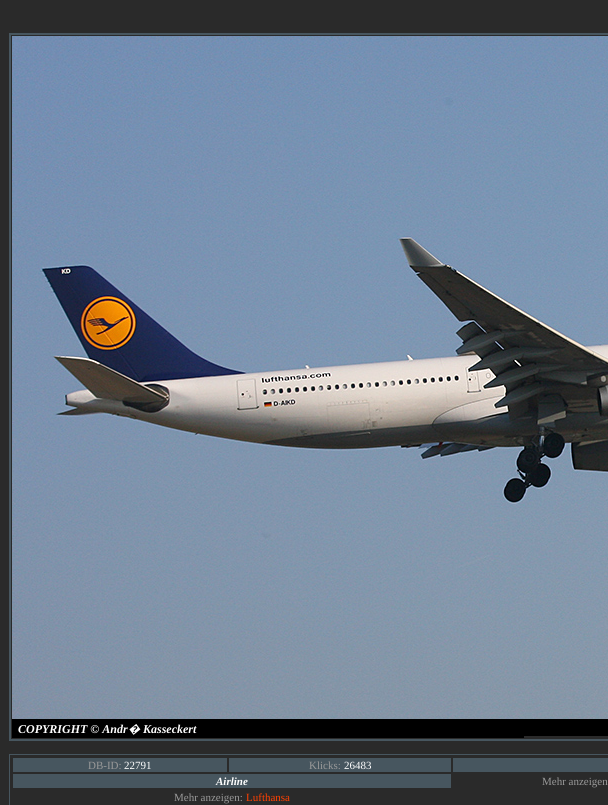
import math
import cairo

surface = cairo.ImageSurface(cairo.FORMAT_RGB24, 608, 805)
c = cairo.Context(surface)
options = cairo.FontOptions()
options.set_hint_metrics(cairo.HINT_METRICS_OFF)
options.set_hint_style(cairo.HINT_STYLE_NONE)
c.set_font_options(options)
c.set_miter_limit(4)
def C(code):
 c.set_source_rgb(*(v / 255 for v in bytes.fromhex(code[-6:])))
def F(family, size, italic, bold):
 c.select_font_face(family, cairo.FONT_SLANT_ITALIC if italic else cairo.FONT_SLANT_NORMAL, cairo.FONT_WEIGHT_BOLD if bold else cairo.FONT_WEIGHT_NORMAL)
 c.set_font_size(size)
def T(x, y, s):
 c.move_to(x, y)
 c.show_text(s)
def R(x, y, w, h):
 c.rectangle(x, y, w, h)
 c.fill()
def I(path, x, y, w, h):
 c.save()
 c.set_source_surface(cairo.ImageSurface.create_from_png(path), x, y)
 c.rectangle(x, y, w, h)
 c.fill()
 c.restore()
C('2a2a2a')
c.paint()
c.rectangle(10,34,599,706)
C('47565f')
c.stroke()
I('1.png',12,36,596,683)
C('000000')
R(12,719,512,19)
F('Liberation Serif',12,1,1)
C('ffffff')
T(18,733,'COPYRIGHT © Andr')
F('Noto Sans',12,1,1)
T(128,733,'�')
F('Liberation Serif',12,1,1)
T(143,733,'Kasseckert')
C('000000')
R(524,719,84,17)
c.rectangle(9.5,754.5,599,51)
C('47565f')
c.set_line_width(1)
c.stroke()
R(13,758,214,14)
F('Liberation Serif',11,0,0)
C('999999')
T(88,769,'DB-ID:')
C('ffffff')
T(124,769,'22791')
C('47565f')
R(229,758,222,14)
C('999999')
T(309,769,'Klicks:')
C('ffffff')
T(344,769,'26483')
C('47565f')
R(453,758,155,14)
R(13,774,438,14)
F('Liberation Serif',11,1,1)
C('ffffff')
T(216,785,'Airline')
F('Liberation Serif',11,0,0)
C('999999')
T(542,785,'Mehr anzeigen')
T(174,801,'Mehr anzeigen:')
C('ff4000')
T(246,801,'Lufthansa')
surface.write_to_png('o.png')
